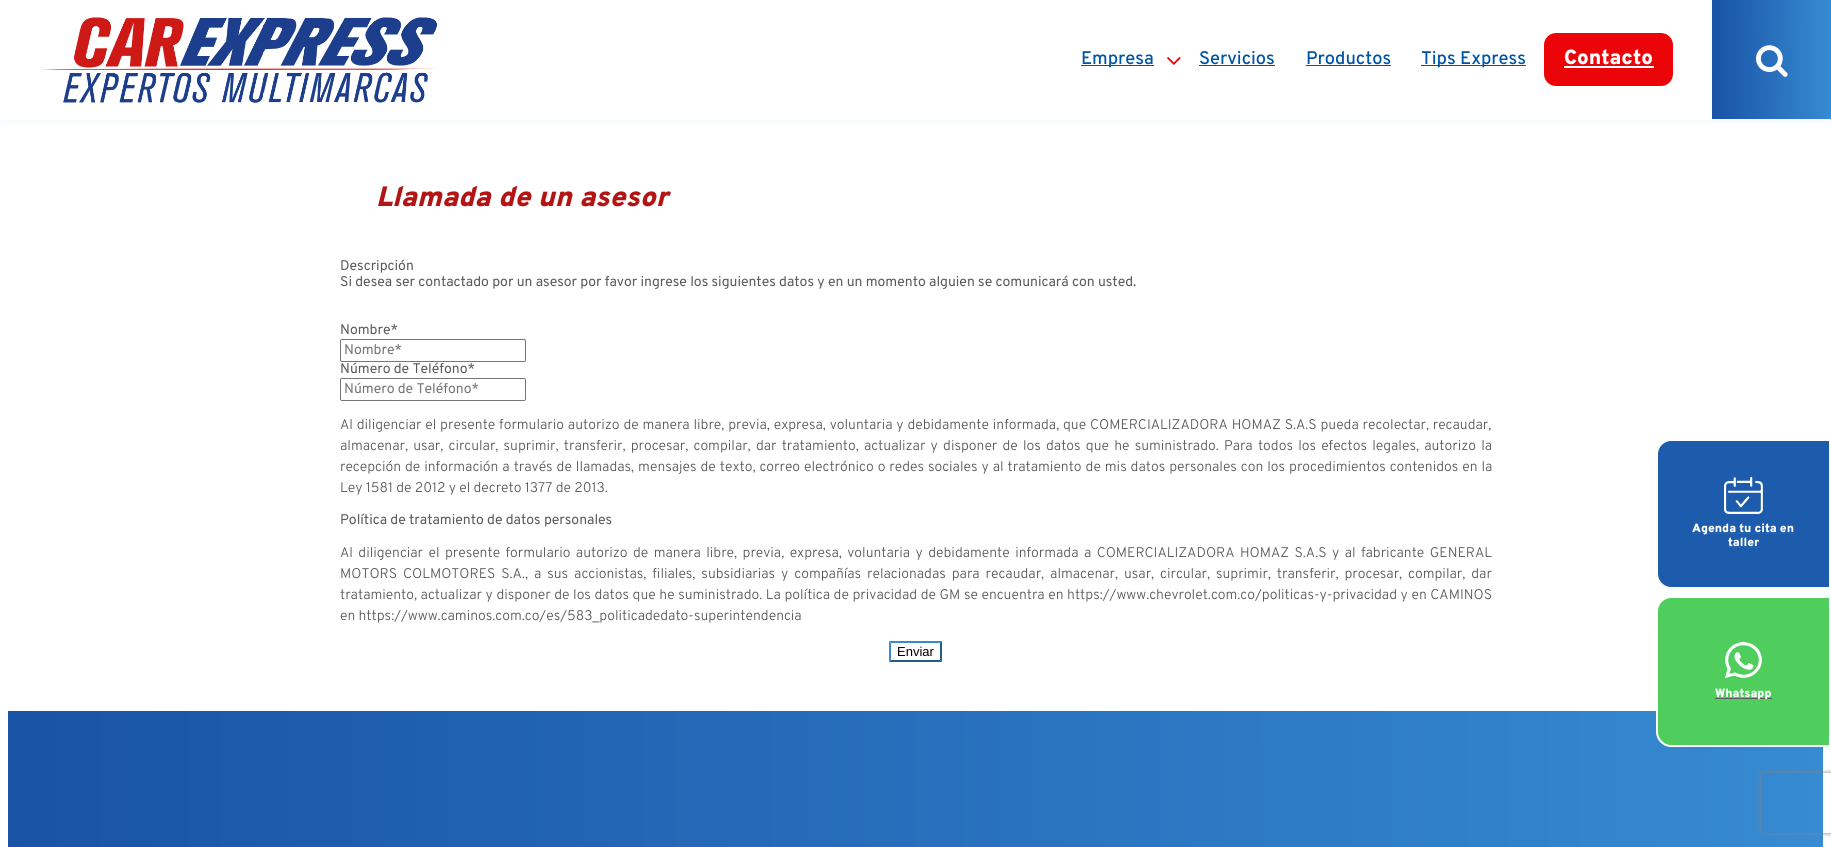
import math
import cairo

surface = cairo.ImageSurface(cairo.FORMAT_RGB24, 1831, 847)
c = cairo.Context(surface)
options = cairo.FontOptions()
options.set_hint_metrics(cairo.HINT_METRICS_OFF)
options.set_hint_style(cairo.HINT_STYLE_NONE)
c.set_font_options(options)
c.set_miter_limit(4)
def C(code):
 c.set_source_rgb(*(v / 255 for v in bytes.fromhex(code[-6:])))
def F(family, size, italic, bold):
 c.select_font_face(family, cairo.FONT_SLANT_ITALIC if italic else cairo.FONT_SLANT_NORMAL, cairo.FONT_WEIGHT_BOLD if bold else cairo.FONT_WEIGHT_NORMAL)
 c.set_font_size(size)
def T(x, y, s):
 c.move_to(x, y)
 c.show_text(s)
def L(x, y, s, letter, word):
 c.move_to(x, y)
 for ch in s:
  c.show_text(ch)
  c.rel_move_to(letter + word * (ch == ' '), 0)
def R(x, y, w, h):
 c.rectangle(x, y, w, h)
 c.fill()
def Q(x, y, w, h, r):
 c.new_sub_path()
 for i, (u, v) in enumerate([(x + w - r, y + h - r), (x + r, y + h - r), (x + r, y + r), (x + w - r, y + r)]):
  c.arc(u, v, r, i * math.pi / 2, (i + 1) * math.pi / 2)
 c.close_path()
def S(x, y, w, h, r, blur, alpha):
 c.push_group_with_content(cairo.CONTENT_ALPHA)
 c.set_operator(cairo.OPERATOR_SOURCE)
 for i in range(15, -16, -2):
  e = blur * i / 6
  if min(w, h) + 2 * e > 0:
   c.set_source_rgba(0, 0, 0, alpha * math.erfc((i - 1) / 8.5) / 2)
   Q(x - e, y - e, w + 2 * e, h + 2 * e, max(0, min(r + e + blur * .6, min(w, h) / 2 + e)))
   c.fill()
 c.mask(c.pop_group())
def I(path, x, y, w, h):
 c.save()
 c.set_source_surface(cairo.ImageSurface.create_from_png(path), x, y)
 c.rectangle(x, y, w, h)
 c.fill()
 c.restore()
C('ffffff')
c.paint()
c.save()
c.rectangle(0,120,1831,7)
c.clip()
C('f1f9ff')
S(0,2,1831,120,0,2.5,1)
c.restore()
I('1.png',42,17,395,86)
C('0054a6')
R(1081,65,73,1)
F('Overpass Medium',18.25,0,0)
T(1081,64,'Empresa')
I('2.png',1167,57,14,8)
T(1199,64,'Servicios')
R(1199,65,76,1)
T(1306,64,'Productos')
R(1306,65,85,1)
R(1421,65,105,1)
T(1421,64,'Tips Express')
C('eb0509')
Q(1544,33,129,53,12)
c.fill()
F('Overpass Black',20.5,0,0)
C('ffffff')
T(1564,64,'Contacto')
R(1564,66,90,2)
gradient = cairo.LinearGradient(1831,59,1712,60)
gradient.add_color_stop_rgba(0,0.212,0.545,0.824,1)
gradient.add_color_stop_rgba(1,0.098,0.325,0.651,1)
c.set_source(gradient)
R(1712,0,119,119)
I('3.png',1756,45,32,32)
F('Overpass Black',28,1,0)
C('b31414')
T(376,206,'Llamada de un asesor')
F('Overpass',14,0,0)
C('5b5b5f')
T(340,270,'Descripción')
T(340,286,'Si desea ser contactado por un asesor por favor ingrese los siguientes datos y en un momento alguien se comunicará con usted.')
T(340,334,'Nombre*')
Q(340.5,339.5,185,22,1.5)
C('767676')
c.set_line_width(1)
c.stroke()
C('757575')
T(344,354,'Nombre*')
C('5b5b5f')
T(340,373,'Número de Teléfono*')
Q(340.5,378.5,185,22,1.5)
C('767676')
c.stroke()
C('757575')
T(344,393,'Número de Teléfono*')
F('Overpass Light',14,0,0)
C('5b5b5f')
L(340,429,'Al diligenciar el presente formulario autorizo de manera libre, previa, expresa, voluntaria y debidamente informada, que COMERCIALIZADORA HOMAZ S.A.S pueda recolectar, recaudar,',0,.6)
L(340,450,'almacenar, usar, circular, suprimir, transferir, procesar, compilar, dar tratamiento, actualizar y disponer de los datos que he suministrado. Para todos los efectos legales, autorizo la',0,2)
L(340,471,'recepción de información a través de llamadas, mensajes de texto, correo electrónico o redes sociales y al tratamiento de mis datos personales con los procedimientos contenidos en la',0,.75)
T(340,492,'Ley 1581 de 2012 y el decreto 1377 de 2013.')
F('Overpass',14,0,0)
T(340,524,'Política de tratamiento de datos personales')
F('Overpass Light',14,0,0)
L(340,557,'Al diligenciar el presente formulario autorizo de manera libre, previa, expresa, voluntaria y debidamente informada a COMERCIALIZADORA HOMAZ S.A.S y al fabricante GENERAL',0,2.2)
L(340,578,'MOTORS COLMOTORES S.A., a sus accionistas, filiales, subsidiarias y compañías relacionadas para recaudar, almacenar, usar, circular, suprimir, transferir, procesar, compilar, dar',0,2.75)
L(340,599,'tratamiento, actualizar y disponer de los datos que he suministrado. La política de privacidad de GM se encuentra en https://www.chevrolet.com.co/politicas-y-privacidad y en CAMINOS',0,.35)
T(340,620,'en https://www.caminos.com.co/es/583_politicadedato-superintendencia')
C('368bd2')
c.new_path()
c.move_to(889,641)
c.line_to(942,641)
c.line_to(940,643)
c.line_to(891,643)
c.close_path()
c.fill()
C('245d8c')
c.new_path()
c.move_to(942,641)
c.line_to(942,662)
c.line_to(940,660)
c.line_to(940,643)
c.close_path()
c.fill()
c.new_path()
c.move_to(942,662)
c.line_to(889,662)
c.line_to(891,660)
c.line_to(940,660)
c.close_path()
c.fill()
C('368bd2')
c.new_path()
c.move_to(889,662)
c.line_to(889,641)
c.line_to(891,643)
c.line_to(891,660)
c.close_path()
c.fill()
F('Liberation Sans',13,0,0)
C('000000')
T(897,656,'Enviar')
gradient = cairo.LinearGradient(1823,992,8,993)
gradient.add_color_stop_rgba(0,0.212,0.545,0.824,1)
gradient.add_color_stop_rgba(1,0.098,0.325,0.651,1)
c.set_source(gradient)
R(8,711,1815,136)
c.save()
c.set_fill_rule(cairo.FILL_RULE_EVEN_ODD)
c.new_path()
c.move_to(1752,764)
c.line_to(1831,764)
c.line_to(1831,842)
c.line_to(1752,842)
c.close_path()
c.move_to(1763,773)
c.line_to(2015,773)
c.curve_to(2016,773,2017,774,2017,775)
c.line_to(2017,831)
c.curve_to(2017,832,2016,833,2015,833)
c.line_to(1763,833)
c.curve_to(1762,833,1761,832,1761,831)
c.line_to(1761,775)
c.curve_to(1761,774,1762,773,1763,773)
c.close_path()
c.clip()
C('808080')
S(1761,773,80,60,2,2.5,1)
c.restore()
C('1d5bac')
c.new_path()
c.move_to(1671,440)
c.line_to(1830,440)
c.line_to(1830,588)
c.line_to(1671,588)
c.curve_to(1663.5,588,1657,581.5,1657,574)
c.line_to(1657,454)
c.curve_to(1657,446.5,1663.5,440,1671,440)
c.close_path()
c.fill_preserve()
C('ffffff')
c.set_line_width(2)
c.stroke()
I('4.png',1724,477,39,37)
C('5b5b5f')
R(1692,533,103,1)
F('Overpass Black',12,0,0)
C('ffffff')
T(1692,532,'Agenda tu cita en')
T(1728,546,'taller')
C('5b5b5f')
R(1728,547,31,1)
C('4fce5d')
c.new_path()
c.move_to(1671,597)
c.line_to(1830,597)
c.line_to(1830,746)
c.line_to(1671,746)
c.curve_to(1663.5,746,1657,739.5,1657,732)
c.line_to(1657,611)
c.curve_to(1657,603.5,1663.5,597,1671,597)
c.close_path()
c.fill_preserve()
C('ffffff')
c.stroke()
I('5.png',1725,642,37,36)
C('5b5b5f')
R(1715,698,57,1)
C('ffffff')
T(1715,697,'Whatsapp')
surface.write_to_png('o.png')
